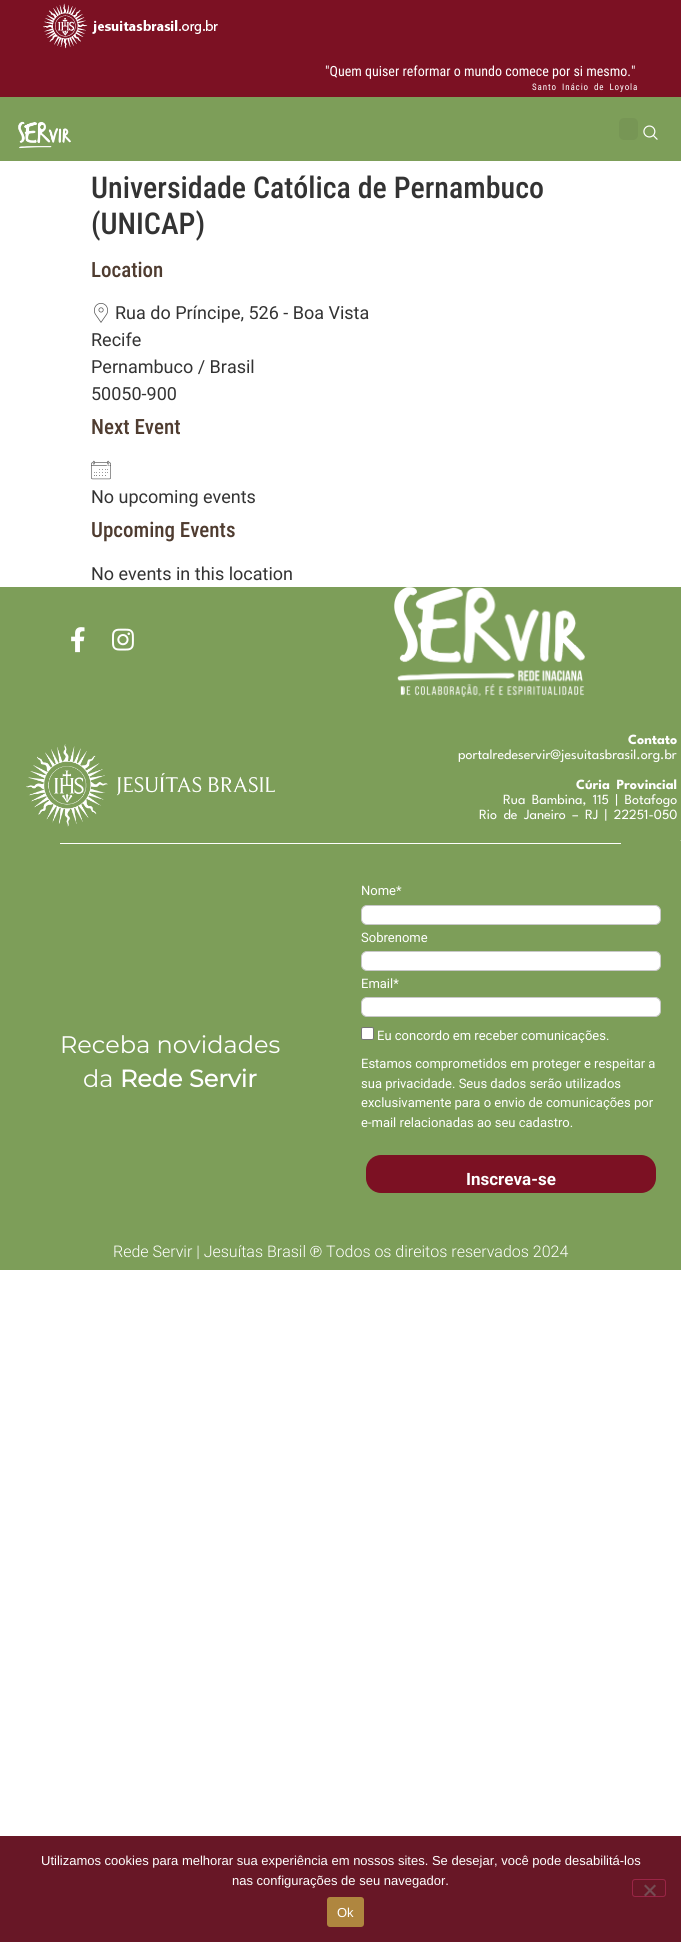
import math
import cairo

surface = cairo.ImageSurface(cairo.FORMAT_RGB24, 681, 1942)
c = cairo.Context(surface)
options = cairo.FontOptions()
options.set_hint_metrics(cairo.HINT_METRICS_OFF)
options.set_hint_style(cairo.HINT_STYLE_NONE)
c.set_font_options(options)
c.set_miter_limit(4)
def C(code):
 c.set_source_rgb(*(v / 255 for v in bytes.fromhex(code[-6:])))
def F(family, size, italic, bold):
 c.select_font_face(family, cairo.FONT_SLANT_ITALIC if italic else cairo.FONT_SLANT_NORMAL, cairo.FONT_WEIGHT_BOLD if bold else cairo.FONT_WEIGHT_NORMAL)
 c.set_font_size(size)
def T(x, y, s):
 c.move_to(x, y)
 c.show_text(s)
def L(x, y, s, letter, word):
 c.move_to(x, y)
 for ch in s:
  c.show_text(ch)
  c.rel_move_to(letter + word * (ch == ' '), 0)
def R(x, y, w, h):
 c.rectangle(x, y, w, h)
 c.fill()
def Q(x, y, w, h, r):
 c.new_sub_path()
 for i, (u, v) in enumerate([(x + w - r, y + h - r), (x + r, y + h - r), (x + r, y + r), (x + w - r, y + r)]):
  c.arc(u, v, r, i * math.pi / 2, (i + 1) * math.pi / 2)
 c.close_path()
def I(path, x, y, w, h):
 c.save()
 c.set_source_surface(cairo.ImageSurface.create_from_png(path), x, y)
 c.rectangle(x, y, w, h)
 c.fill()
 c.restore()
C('ffffff')
c.paint()
C('7c1123')
R(0,0,681,97)
I('1.png',43,3,175,46)
F('Roboto Condensed',14,0,0)
C('ffffff')
T(325,76,'"Quem quiser reformar o mundo comece por si mesmo."')
F('Roboto Condensed',9,0,0)
L(532,90,'Santo Inácio de Loyola',.9,2)
C('7d9e59')
R(0,97,681,64)
I('2.png',18,121,53,29)
C('779655')
Q(619,118,19,22,5)
c.fill()
I('3.png',643,125,15,15)
F('Roboto Condensed Medium',30,0,0)
C('333333')
T(91,198,'Universidade Católica de Pernambuco')
T(91,234,'(UNICAP)')
F('Roboto Condensed Medium',21,0,0)
C('4f3c30')
T(91,277,'Location')
I('4.png',94,303,14,20)
F('Roboto',18,0,0)
C('333333')
T(115,319,'Rua do Príncipe, 526 - Boa Vista')
T(91,346,'Recife')
T(91,373,'Pernambuco / Brasil')
T(91,400,'50050-900')
F('Roboto Condensed Medium',21,0,0)
C('4f3c30')
T(91,434,'Next Event')
I('5.png',91,460,20,20)
F('Roboto',18,0,0)
C('333333')
T(91,503,'No upcoming events')
F('Roboto Condensed Medium',21,0,0)
C('4f3c30')
T(91,537,'Upcoming Events')
F('Roboto',18,0,0)
C('333333')
T(91,580,'No events in this location')
C('7d9e59')
c.new_path()
c.move_to(0,587)
c.line_to(681,587)
c.line_to(681,840)
c.curve_to(681,840.5,680.5,841,680,841)
c.line_to(0,841)
c.close_path()
c.fill()
I('6.png',71,627,14,26)
I('7.png',112,628,22,23)
I('8.png',394,587,191,110)
I('9.png',26,744,249,83)
F('League Spartan',14,0,1)
C('ffffff')
T(628,744,'Contato')
F('League Spartan',14,0,0)
T(458,759,'portalredeservir@jesuitasbrasil.org.br')
F('League Spartan',14,0,1)
L(576,789,'Cúria Provincial',0,3)
F('League Spartan',14,0,0)
L(503,804,'Rua Bambina, 115 | Botafogo',0,3)
L(479,819,'Rio de Janeiro – RJ | 22251-050',0,3)
C('7d9e59')
R(0,841,681,429)
C('ffffff')
R(60,843,561,1)
F('Montserrat Thin',24,0,0)
T(60,1053,'Receba novidades')
T(83,1087,'da')
F('Montserrat',24,0,1)
T(120,1087,'Rede Servir')
F('Roboto',13,0,0)
T(361,895,'Nome*')
Q(361.5,905.5,299,19,5.5)
c.fill_preserve()
C('c8c8c8')
c.set_line_width(1)
c.stroke()
C('ffffff')
T(361,942,'Sobrenome')
Q(361.5,951.5,299,19,5.5)
c.fill_preserve()
C('c8c8c8')
c.stroke()
C('ffffff')
T(361,988,'Email*')
Q(361.5,997.5,299,19,5.5)
c.fill_preserve()
C('c8c8c8')
c.stroke()
C('ffffff')
Q(361.5,1027.5,12,12,1.5)
c.fill_preserve()
C('767676')
c.stroke()
C('ffffff')
T(377,1040,'Eu concordo em receber comunicações.')
T(361,1068,'Estamos comprometidos em proteger e respeitar a')
T(361,1088,'sua privacidade. Seus dados serão utilizados')
T(361,1107,'exclusivamente para o envio de comunicações por')
T(361,1127,'e-mail relacionadas ao seu cadastro.')
C('7c1123')
Q(366,1155,290,38,15)
c.fill()
F('Roboto',17,0,1)
C('ffffff')
T(466,1185,'Inscreva-se')
F('Roboto Light',16,0,0)
T(113,1257,'Rede Servir | Jesuítas Brasil')
F('Liberation Sans',16,0,0)
T(310,1257,'℗')
F('Roboto Light',16,0,0)
T(326,1257,'Todos os direitos reservados 2024')
C('681726')
R(0,1836,681,106)
F('Liberation Sans',13,0,0)
C('ffffff')
T(41,1865,'Utilizamos cookies para melhorar sua experiência em nossos sites. Se desejar, você pode desabilitá-los')
T(232,1885,'nas configurações de seu navegador.')
Q(632.5,1879.5,33,17,2.5)
C('9a2546')
c.stroke()
C('744c53')
c.new_path()
c.move_to(654.5,1884.5)
c.line_to(656,1886)
c.line_to(645.5,1896.5)
c.line_to(644,1895)
c.close_path()
c.fill()
c.new_path()
c.move_to(644,1886)
c.line_to(645.5,1884.5)
c.line_to(656,1895)
c.line_to(654.5,1896.5)
c.close_path()
c.fill()
C('af863f')
Q(327,1897,37,30,3)
c.fill()
C('ffffff')
T(337,1917,'Ok')
surface.write_to_png('o.png')
